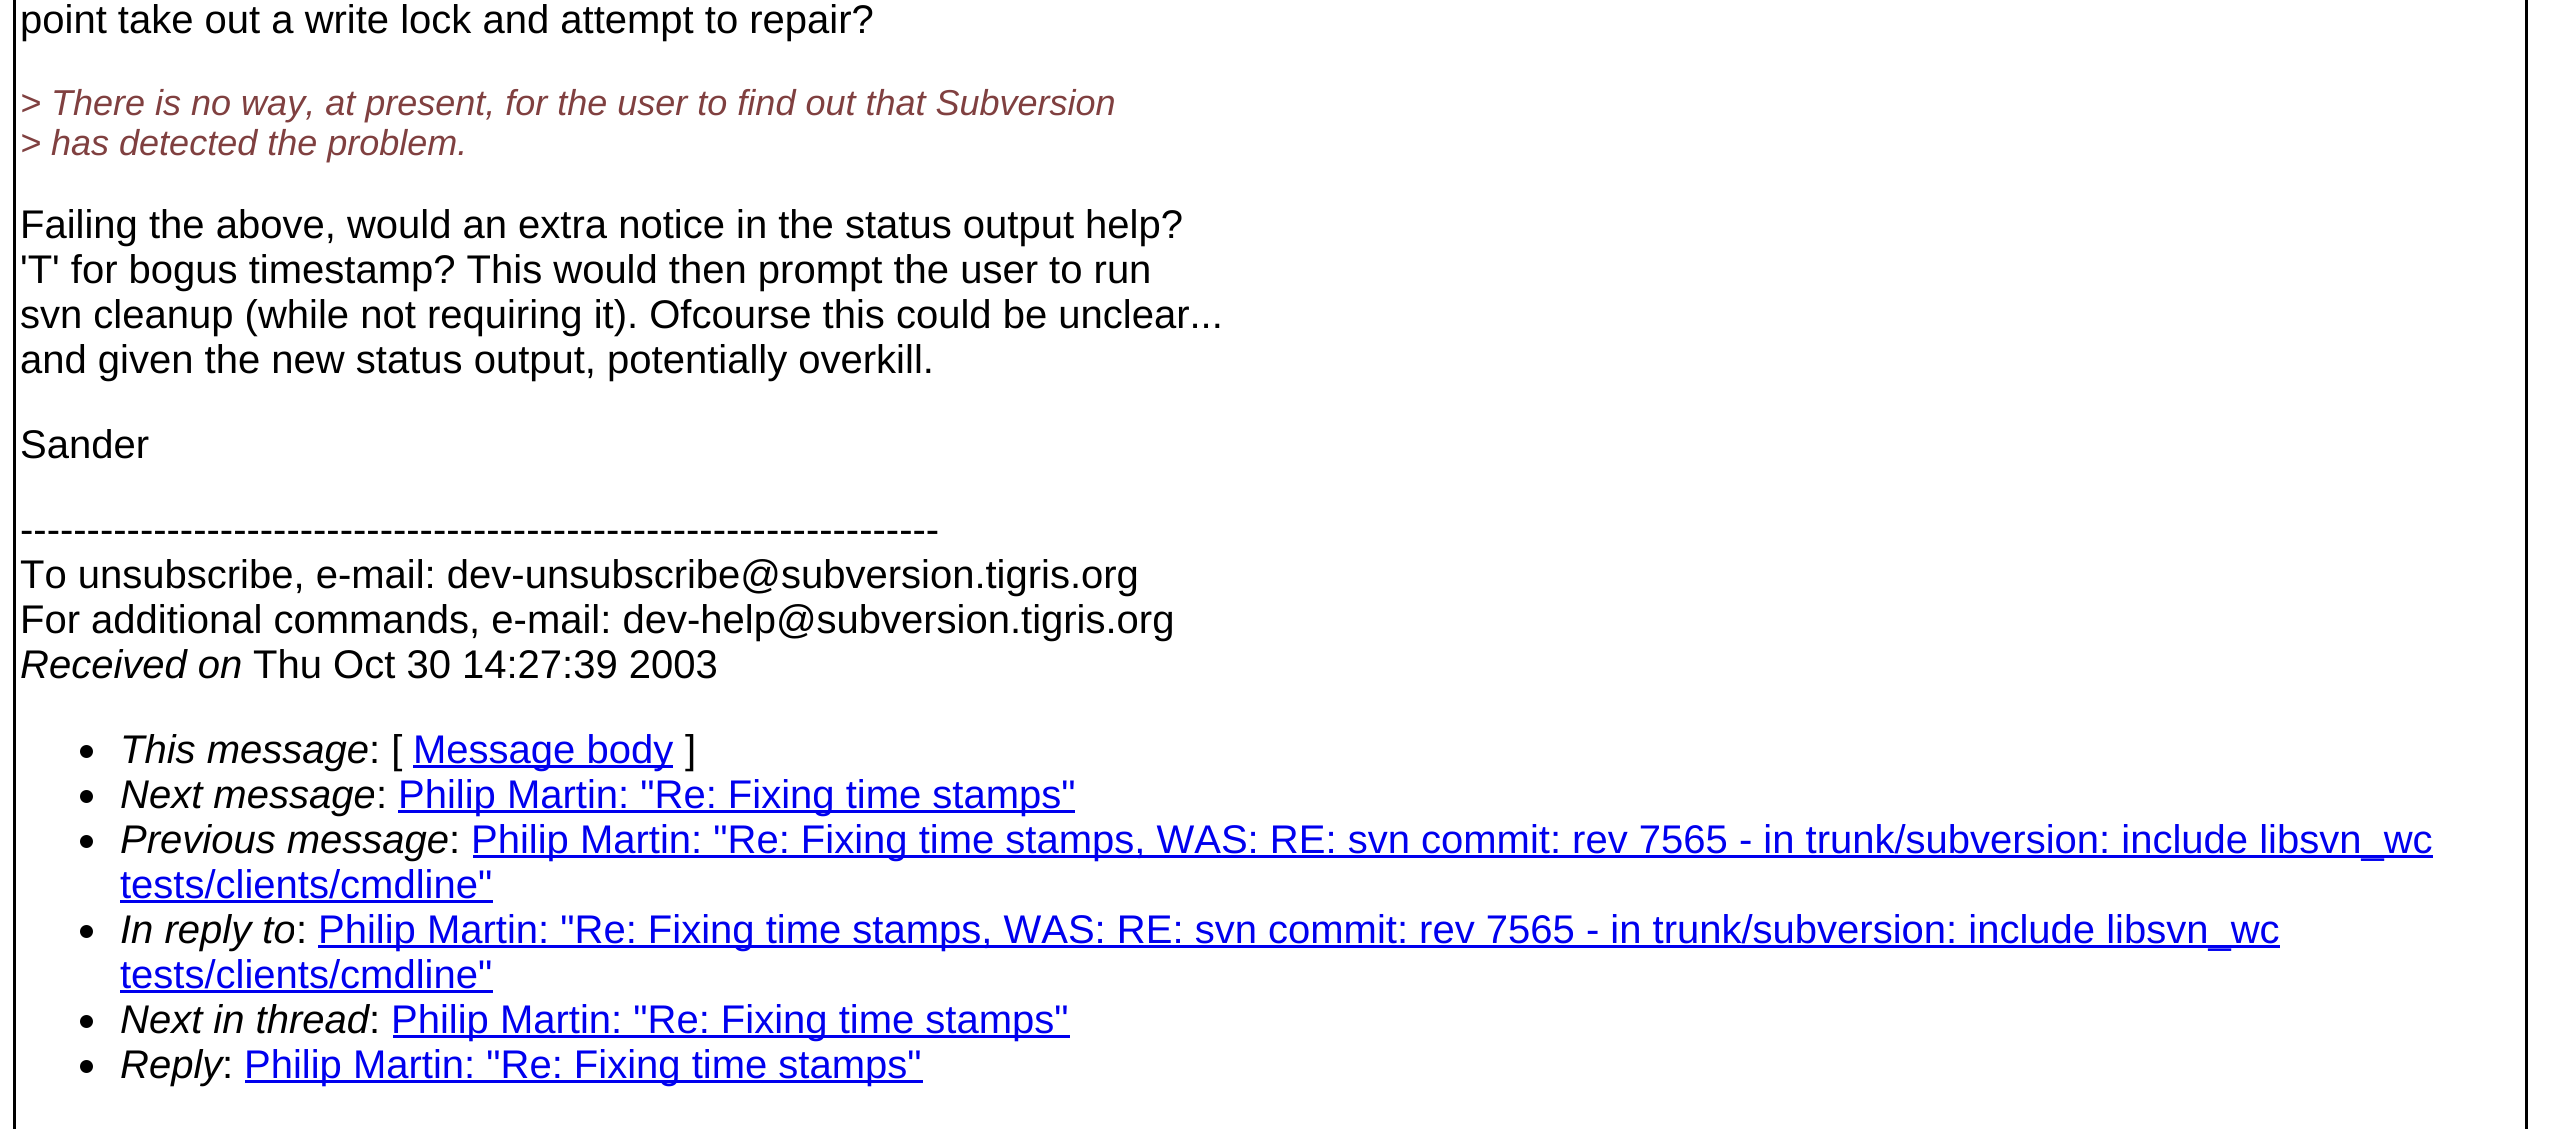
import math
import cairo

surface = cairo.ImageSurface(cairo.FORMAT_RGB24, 2550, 1129)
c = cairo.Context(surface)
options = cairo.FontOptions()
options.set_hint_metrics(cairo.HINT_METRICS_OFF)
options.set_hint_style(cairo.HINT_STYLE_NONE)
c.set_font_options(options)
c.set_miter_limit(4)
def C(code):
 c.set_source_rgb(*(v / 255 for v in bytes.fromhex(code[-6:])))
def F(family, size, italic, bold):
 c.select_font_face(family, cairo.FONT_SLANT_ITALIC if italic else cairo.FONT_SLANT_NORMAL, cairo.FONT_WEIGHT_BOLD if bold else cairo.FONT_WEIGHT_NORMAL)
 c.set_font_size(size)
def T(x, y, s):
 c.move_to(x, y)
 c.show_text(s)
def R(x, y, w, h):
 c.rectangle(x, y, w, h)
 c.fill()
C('ffffff')
c.paint()
c.rectangle(14.5,-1.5,2512,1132)
C('000000')
c.set_line_width(3)
c.stroke()
F('Liberation Sans',40,0,0)
T(20,33,'point take out a write lock and attempt to repair?')
F('Liberation Sans',36,1,0)
C('804040')
T(20,115,'> There is no way, at present, for the user to find out that Subversion')
T(20,155,'> has detected the problem.')
F('Liberation Sans',40,0,0)
C('000000')
T(20,238,'Failing the above, would an extra notice in the status output help?')
T(20,283,'\'T\' for bogus timestamp? This would then prompt the user to run')
T(20,328,'svn cleanup (while not requiring it). Ofcourse this could be unclear...')
T(20,373,'and given the new status output, potentially overkill.')
T(20,458,'Sander')
T(20,543,'---------------------------------------------------------------------')
T(20,588,'To unsubscribe, e-mail: dev-unsubscribe@subversion.tigris.org')
T(20,633,'For additional commands, e-mail: dev-help@subversion.tigris.org')
F('Liberation Sans',40,1,0)
T(20,678,'Received on')
F('Liberation Sans',40,0,0)
T(253,678,'Thu Oct 30 14:27:39 2003')
c.new_path()
c.arc(86.5,751.5,6.5,0,2 * math.pi)
c.fill()
F('Liberation Sans',40,1,0)
T(120,763,'This message')
F('Liberation Sans',40,0,0)
T(369,763,': [')
C('0000ee')
R(413,765,260,3)
T(413,763,'Message body')
C('000000')
T(685,763,']')
c.new_path()
c.arc(86.5,796.5,6.5,0,2 * math.pi)
c.fill()
F('Liberation Sans',40,1,0)
T(120,808,'Next message')
F('Liberation Sans',40,0,0)
T(376,808,':')
C('0000ee')
R(398,810,677,3)
T(398,808,'Philip Martin: "Re: Fixing time stamps"')
C('000000')
c.new_path()
c.arc(86.5,841.5,6.5,0,2 * math.pi)
c.fill()
F('Liberation Sans',40,1,0)
T(120,853,'Previous message')
F('Liberation Sans',40,0,0)
T(449,853,':')
C('0000ee')
R(473,855,1960,3)
T(471,853,'Philip Martin: "Re: Fixing time stamps, WAS: RE: svn commit: rev 7565 - in trunk/subversion: include libsvn_wc')
T(120,898,'tests/clients/cmdline"')
R(120,900,373,3)
C('000000')
c.new_path()
c.arc(86.5,931.5,6.5,0,2 * math.pi)
c.fill()
F('Liberation Sans',40,1,0)
T(120,943,'In reply to')
F('Liberation Sans',40,0,0)
T(296,943,':')
C('0000ee')
R(318,945,1962,3)
T(318,943,'Philip Martin: "Re: Fixing time stamps, WAS: RE: svn commit: rev 7565 - in trunk/subversion: include libsvn_wc')
T(120,988,'tests/clients/cmdline"')
R(120,990,373,3)
C('000000')
c.new_path()
c.arc(86.5,1021.5,6.5,0,2 * math.pi)
c.fill()
F('Liberation Sans',40,1,0)
T(120,1033,'Next in thread')
F('Liberation Sans',40,0,0)
T(369,1033,':')
C('0000ee')
R(393,1035,677,3)
T(391,1033,'Philip Martin: "Re: Fixing time stamps"')
C('000000')
c.new_path()
c.arc(86.5,1066.5,6.5,0,2 * math.pi)
c.fill()
F('Liberation Sans',40,1,0)
T(120,1078,'Reply')
F('Liberation Sans',40,0,0)
T(222,1078,':')
C('0000ee')
R(245,1080,678,3)
T(244,1078,'Philip Martin: "Re: Fixing time stamps"')
surface.write_to_png('o.png')
